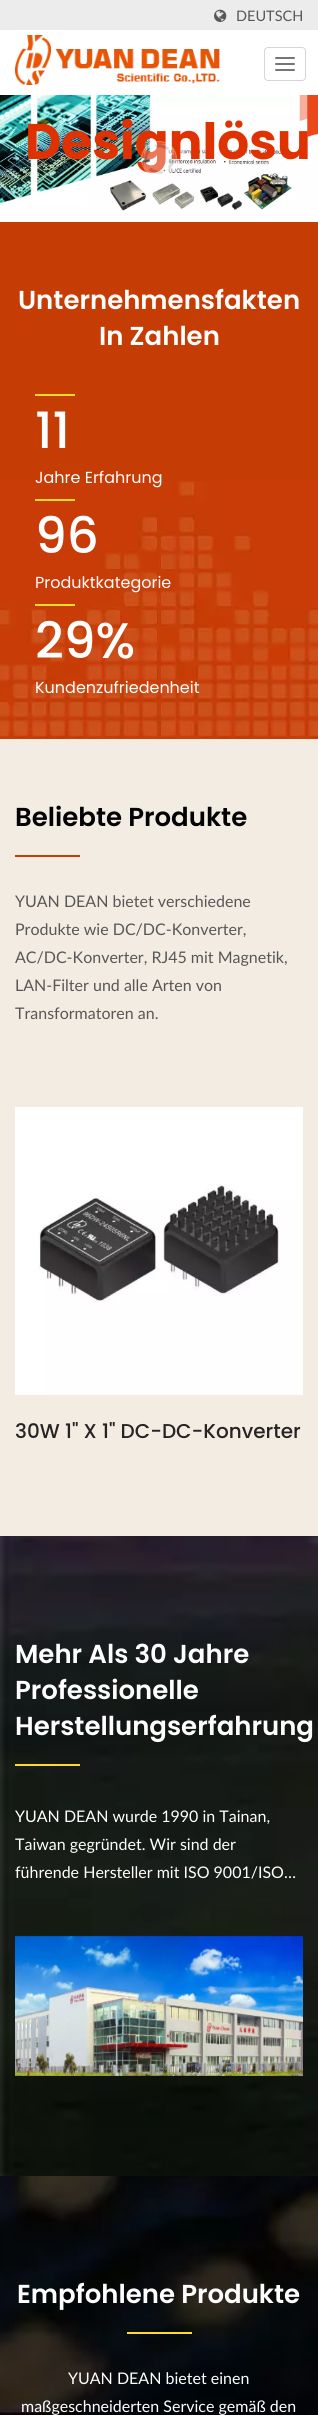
import math
import cairo

surface = cairo.ImageSurface(cairo.FORMAT_RGB24, 318, 2415)
c = cairo.Context(surface)
options = cairo.FontOptions()
options.set_hint_metrics(cairo.HINT_METRICS_OFF)
options.set_hint_style(cairo.HINT_STYLE_NONE)
c.set_font_options(options)
c.set_miter_limit(4)
def C(code):
 c.set_source_rgb(*(v / 255 for v in bytes.fromhex(code[-6:])))
def F(family, size, italic, bold):
 c.select_font_face(family, cairo.FONT_SLANT_ITALIC if italic else cairo.FONT_SLANT_NORMAL, cairo.FONT_WEIGHT_BOLD if bold else cairo.FONT_WEIGHT_NORMAL)
 c.set_font_size(size)
def T(x, y, s):
 c.move_to(x, y)
 c.show_text(s)
def R(x, y, w, h):
 c.rectangle(x, y, w, h)
 c.fill()
def Q(x, y, w, h, r):
 c.new_sub_path()
 for i, (u, v) in enumerate([(x + w - r, y + h - r), (x + r, y + h - r), (x + r, y + r), (x + w - r, y + r)]):
  c.arc(u, v, r, i * math.pi / 2, (i + 1) * math.pi / 2)
 c.close_path()
def I(path, x, y, w, h):
 c.save()
 c.set_source_surface(cairo.ImageSurface.create_from_png(path), x, y)
 c.rectangle(x, y, w, h)
 c.fill()
 c.restore()
C('ffffff')
c.paint()
C('ececec')
R(0,0,318,30)
I('1.png',214,9,13,13)
F('Lato',14.5,0,0)
C('575757')
T(236,21,'DEUTSCH')
I('2.png',15,35,205,50)
Q(264.5,47.5,41,33,3.5)
C('d6d6d6')
c.set_line_width(1)
c.stroke()
C('767676')
Q(275,57,20,2,1)
c.fill()
Q(275,63,20,2,1)
c.fill()
Q(275,69,20,2,1)
c.fill()
I('3.png',0,95,318,116)
F('Poppins',50,0,1)
C('e03100')
T(25,159,'Designlösu')
c.set_source_rgba(1,1,1,0.18)
c.new_path()
c.arc(159,159,18,0,2 * math.pi)
c.fill()
I('4.png',144,144,30,30)
c.arc(159,159,17.5,0,2 * math.pi)
c.set_source_rgba(1,1,1,0.2)
c.stroke()
C('c63c05')
R(0,222,318,259)
I('5.png',0,481,318,258)
F('Poppins SemiBold',26,0,0)
C('ffffff')
T(18,309,'Unternehmensfakten')
T(99,345,'In Zahlen')
C('fddb27')
R(35,394,40,2)
F('Poppins Medium',50,0,0)
C('ffffff')
T(35,448,'11')
F('Poppins',16,0,0)
T(35,483,'Jahre Erfahrung')
C('fddb27')
R(35,499,40,2)
F('Poppins Medium',50,0,0)
C('ffffff')
T(35,553,'96')
F('Poppins',16,0,0)
T(35,588,'Produktkategorie')
C('fddb27')
R(35,604,40,2)
F('Poppins Medium',50,0,0)
C('ffffff')
T(35,658,'29%')
F('Poppins',16,0,0)
T(35,693,'Kundenzufriedenheit')
C('f3ece2')
R(0,739,318,797)
F('Poppins SemiBold',26,0,0)
C('020205')
T(15,826,'Beliebte Produkte')
C('c63c05')
R(15,855,65,2)
F('Lato',16,0,0)
C('575757')
T(15,907,'YUAN DEAN bietet verschiedene')
T(15,935,'Produkte wie DC/DC-Konverter,')
T(15,963,'AC/DC-Konverter, RJ45 mit Magnetik,')
T(15,991,'LAN-Filter und alle Arten von')
T(15,1019,'Transformatoren an.')
I('6.png',15,1107,288,288)
F('Poppins Medium',20,0,0)
C('252324')
T(15,1438,'30W 1" X 1" DC-DC-Konverter')
I('7.png',0,1536,318,640)
F('Poppins SemiBold',26,0,0)
C('ffffff')
T(15,1663,'Mehr Als 30 Jahre')
T(15,1699,'Professionelle')
T(15,1735,'Herstellungserfahrung')
C('fddb27')
R(15,1764,65,2)
F('Lato',16,0,0)
C('ffffff')
T(15,1822,'YUAN DEAN wurde 1990 in Tainan,')
T(15,1850,'Taiwan gegründet. Wir sind der')
T(15,1878,'führende Hersteller mit ISO 9001/ISO…')
I('8.png',15,1935,288,141)
I('9.png',0,2176,318,239)
F('Poppins SemiBold',26,0,0)
T(17,2303,'Empfohlene Produkte')
C('fddb27')
R(127,2332,65,2)
F('Lato',16,0,0)
C('ffffff')
T(68,2384,'YUAN DEAN bietet einen')
T(21,2412,'maßgeschneiderten Service gemäß den')
surface.write_to_png('o.png')
